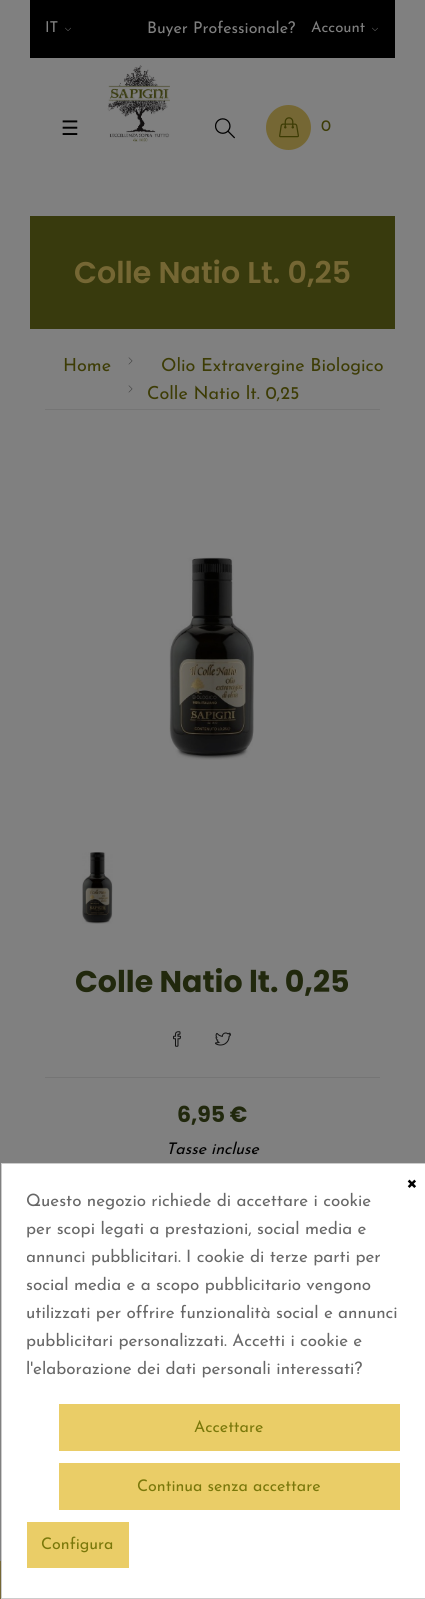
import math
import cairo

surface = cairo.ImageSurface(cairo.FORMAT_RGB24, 425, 1599)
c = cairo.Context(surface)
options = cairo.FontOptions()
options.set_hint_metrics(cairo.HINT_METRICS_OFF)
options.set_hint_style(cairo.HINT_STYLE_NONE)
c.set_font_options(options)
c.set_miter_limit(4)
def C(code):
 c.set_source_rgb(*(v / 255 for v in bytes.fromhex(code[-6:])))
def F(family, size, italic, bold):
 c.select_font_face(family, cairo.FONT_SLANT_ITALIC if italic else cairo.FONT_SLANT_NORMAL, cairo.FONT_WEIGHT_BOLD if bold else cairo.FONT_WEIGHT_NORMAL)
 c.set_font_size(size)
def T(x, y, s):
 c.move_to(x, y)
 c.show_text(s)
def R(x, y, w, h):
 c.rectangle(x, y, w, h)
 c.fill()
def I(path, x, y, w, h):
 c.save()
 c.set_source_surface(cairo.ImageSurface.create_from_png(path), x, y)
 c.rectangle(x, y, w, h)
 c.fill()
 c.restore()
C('808080')
c.paint()
C('000000')
R(30,0,365,58)
F('Josefin Sans',15,0,0)
C('808080')
T(45,32,'IT')
I('1.png',65,27,6,4)
F('Josefin Sans',16,0,0)
T(147,33,'Buyer Professionale?')
F('Josefin Sans',15,0,0)
T(311,32,'Account')
I('1.png',372,27,6,4)
F('DejaVu Sans',20,0,0)
C('000000')
T(61,135,'☰')
I('2.png',107,65,63,77)
I('3.png',215,118,20,21)
C('756734')
c.arc(288.5,127.5,22.5,0,2 * math.pi)
c.fill()
I('4.png',279,117,20,21)
F('Josefin Sans',16,0,0)
C('3d3c05')
T(321,131,'0')
C('383a0d')
R(30,216,365,113)
F('Poppins SemiBold',30,0,0)
C('756734')
T(74,283,'Colle Natio Lt. 0,25')
F('Josefin Sans',18,0,0)
C('3d3c05')
T(63,371,'Home')
I('5.png',128,357,5,8)
T(161,371,'Olio Extravergine Biologico')
I('5.png',128,385,5,8)
T(147,399,'Colle Natio lt. 0,25')
C('757575')
R(45,409,335,1)
I('6.png',169,557,85,203)
I('7.png',82,852,31,72)
F('Poppins',30,0,1)
C('21280d')
T(75,992,'Colle Natio lt. 0,25')
C('757575')
R(45,1077,335,1)
I('8.png',173,1031,8,16)
I('9.png',215,1032,16,14)
F('Poppins',22,0,1)
C('21280d')
T(177,1122,'6,95 €')
F('Josefin Sans',16,1,0)
C('000000')
T(166,1154,'Tasse incluse')
C('ffffff')
c.rectangle(1.5,1163.5,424,435)
c.fill_preserve()
C('cccccc')
c.set_line_width(1)
c.stroke()
F('Josefin Sans',25,0,0)
C('000000')
T(405,1188,'×')
F('Josefin Sans',17,0,0)
C('676767')
T(26,1206,'Questo negozio richiede di accettare i cookie')
T(26,1234,'per scopi legati a prestazioni, social media e')
c.save()
c.rectangle(27,1188,373,196)
c.clip()
T(26,1262,'annunci pubblicitari. I cookie di terze parti per')
c.restore()
T(26,1290,'social media e a scopo pubblicitario vengono')
T(26,1318,'utilizzati per offrire funzionalità social e annunci')
T(26,1346,'pubblicitari personalizzati. Accetti i cookie e')
T(26,1374,'l\'elaborazione dei dati personali interessati?')
C('eacd67')
R(59,1404,341,47)
F('Josefin Sans',16,0,0)
C('7a780a')
T(194,1432,'Accettare')
C('eacd67')
R(59,1463,341,47)
C('7a780a')
T(137,1491,'Continua senza accettare')
C('eacd67')
R(27,1522,102,46)
C('7a780a')
T(41,1549,'Configura')
C('756734')
R(0,1561,1,38)
surface.write_to_png('o.png')
